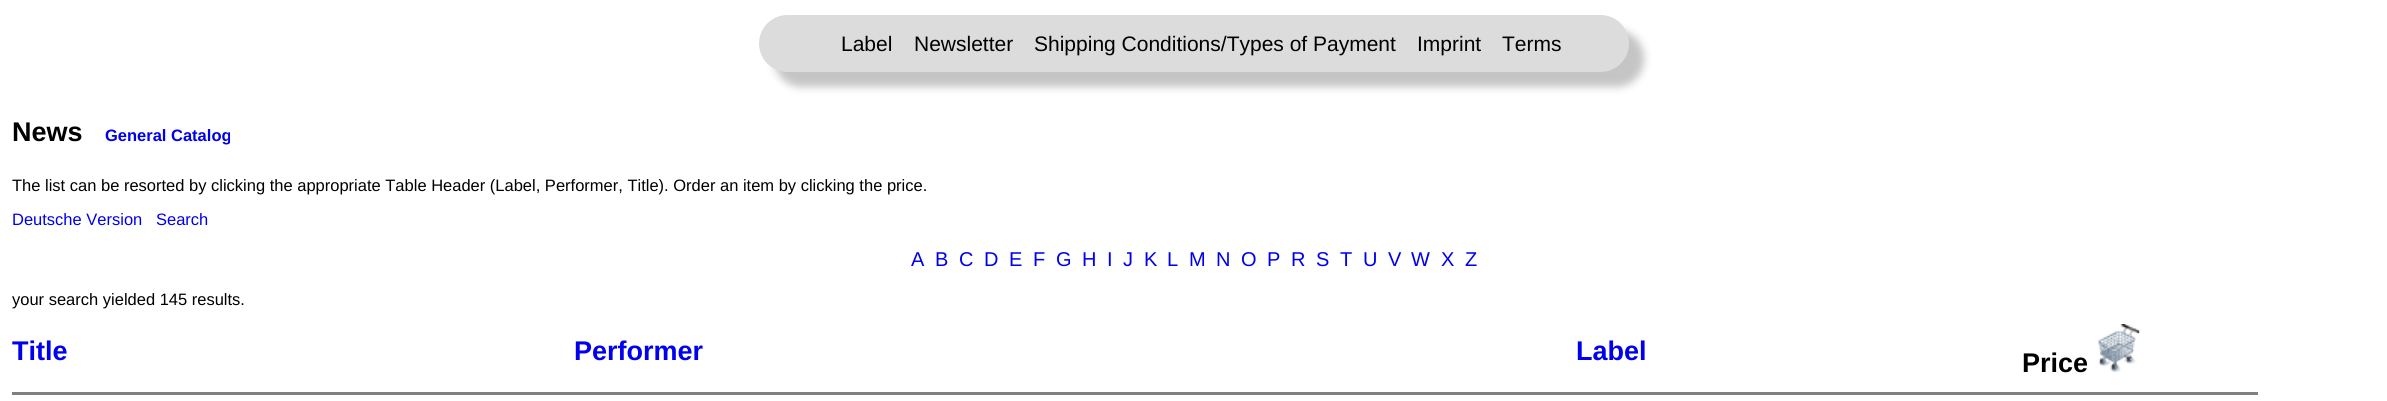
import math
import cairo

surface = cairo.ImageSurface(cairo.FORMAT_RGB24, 2387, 401)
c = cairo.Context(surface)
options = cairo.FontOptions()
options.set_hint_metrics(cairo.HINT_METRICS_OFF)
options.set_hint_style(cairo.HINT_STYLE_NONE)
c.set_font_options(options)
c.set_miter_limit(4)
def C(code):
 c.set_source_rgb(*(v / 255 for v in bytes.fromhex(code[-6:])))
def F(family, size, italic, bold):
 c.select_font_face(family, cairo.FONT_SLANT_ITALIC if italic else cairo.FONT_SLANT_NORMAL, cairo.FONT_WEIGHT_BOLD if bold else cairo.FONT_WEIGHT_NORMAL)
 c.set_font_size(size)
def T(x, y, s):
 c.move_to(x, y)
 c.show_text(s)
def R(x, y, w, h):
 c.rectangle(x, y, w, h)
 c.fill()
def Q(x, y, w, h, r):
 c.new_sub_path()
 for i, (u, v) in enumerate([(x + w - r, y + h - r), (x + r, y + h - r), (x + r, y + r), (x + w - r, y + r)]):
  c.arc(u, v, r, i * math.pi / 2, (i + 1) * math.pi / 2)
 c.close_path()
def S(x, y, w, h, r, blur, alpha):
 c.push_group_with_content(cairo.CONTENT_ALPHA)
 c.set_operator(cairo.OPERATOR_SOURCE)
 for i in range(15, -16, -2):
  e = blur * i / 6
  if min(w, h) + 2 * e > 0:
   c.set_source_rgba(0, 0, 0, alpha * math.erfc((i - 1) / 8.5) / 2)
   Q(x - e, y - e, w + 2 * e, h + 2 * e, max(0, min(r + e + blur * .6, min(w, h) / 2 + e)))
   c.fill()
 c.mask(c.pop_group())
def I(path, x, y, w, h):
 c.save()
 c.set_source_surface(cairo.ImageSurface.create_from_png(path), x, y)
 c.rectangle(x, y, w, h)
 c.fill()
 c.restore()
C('ffffff')
c.paint()
C('c5c5c5')
S(774,30,870,57,28.5,4,1)
C('dcdcdc')
Q(759,15,870,57,28.5)
c.fill()
F('Liberation Sans',21,0,0)
C('000000')
T(841,51,'Label')
T(914,51,'Newsletter')
T(1034,51,'Shipping Conditions/Types of Payment')
T(1417,51,'Imprint')
T(1502,51,'Terms')
F('Liberation Sans',27,0,1)
T(12,141,'News')
F('Liberation Sans',16.5,0,1)
C('0000ee')
T(105,141,'General Catalog')
F('Liberation Sans',16.5,0,0)
C('000000')
T(12,191,'The list can be resorted by clicking the appropriate Table Header (Label, Performer, Title). Order an item by clicking the price.')
C('0000ee')
T(12,225,'Deutsche Version')
T(156,225,'Search')
F('Liberation Sans',20,0,0)
T(911,266,'A')
T(935,266,'B')
T(959,266,'C')
T(984,266,'D')
T(1009,266,'E')
T(1033,266,'F')
T(1056,266,'G')
T(1082,266,'H')
T(1107,266,'I')
T(1123,266,'J')
T(1144,266,'K')
T(1167,266,'L')
T(1189,266,'M')
T(1216,266,'N')
T(1241,266,'O')
T(1267,266,'P')
T(1291,266,'R')
T(1316,266,'S')
T(1340,266,'T')
T(1363,266,'U')
T(1388,266,'V')
T(1411,266,'W')
T(1441,266,'X')
T(1465,266,'Z')
F('Liberation Sans',16.5,0,0)
C('000000')
T(12,305,'your search yielded 145 results.')
F('Liberation Sans',27,0,1)
C('0000ee')
T(12,360,'Title')
T(574,360,'Performer')
T(1576,360,'Label')
C('000000')
T(2022,372,'Price')
I('1.png',2098,324,42,48)
C('808080')
R(12,392,2246,3)
surface.write_to_png('o.png')
